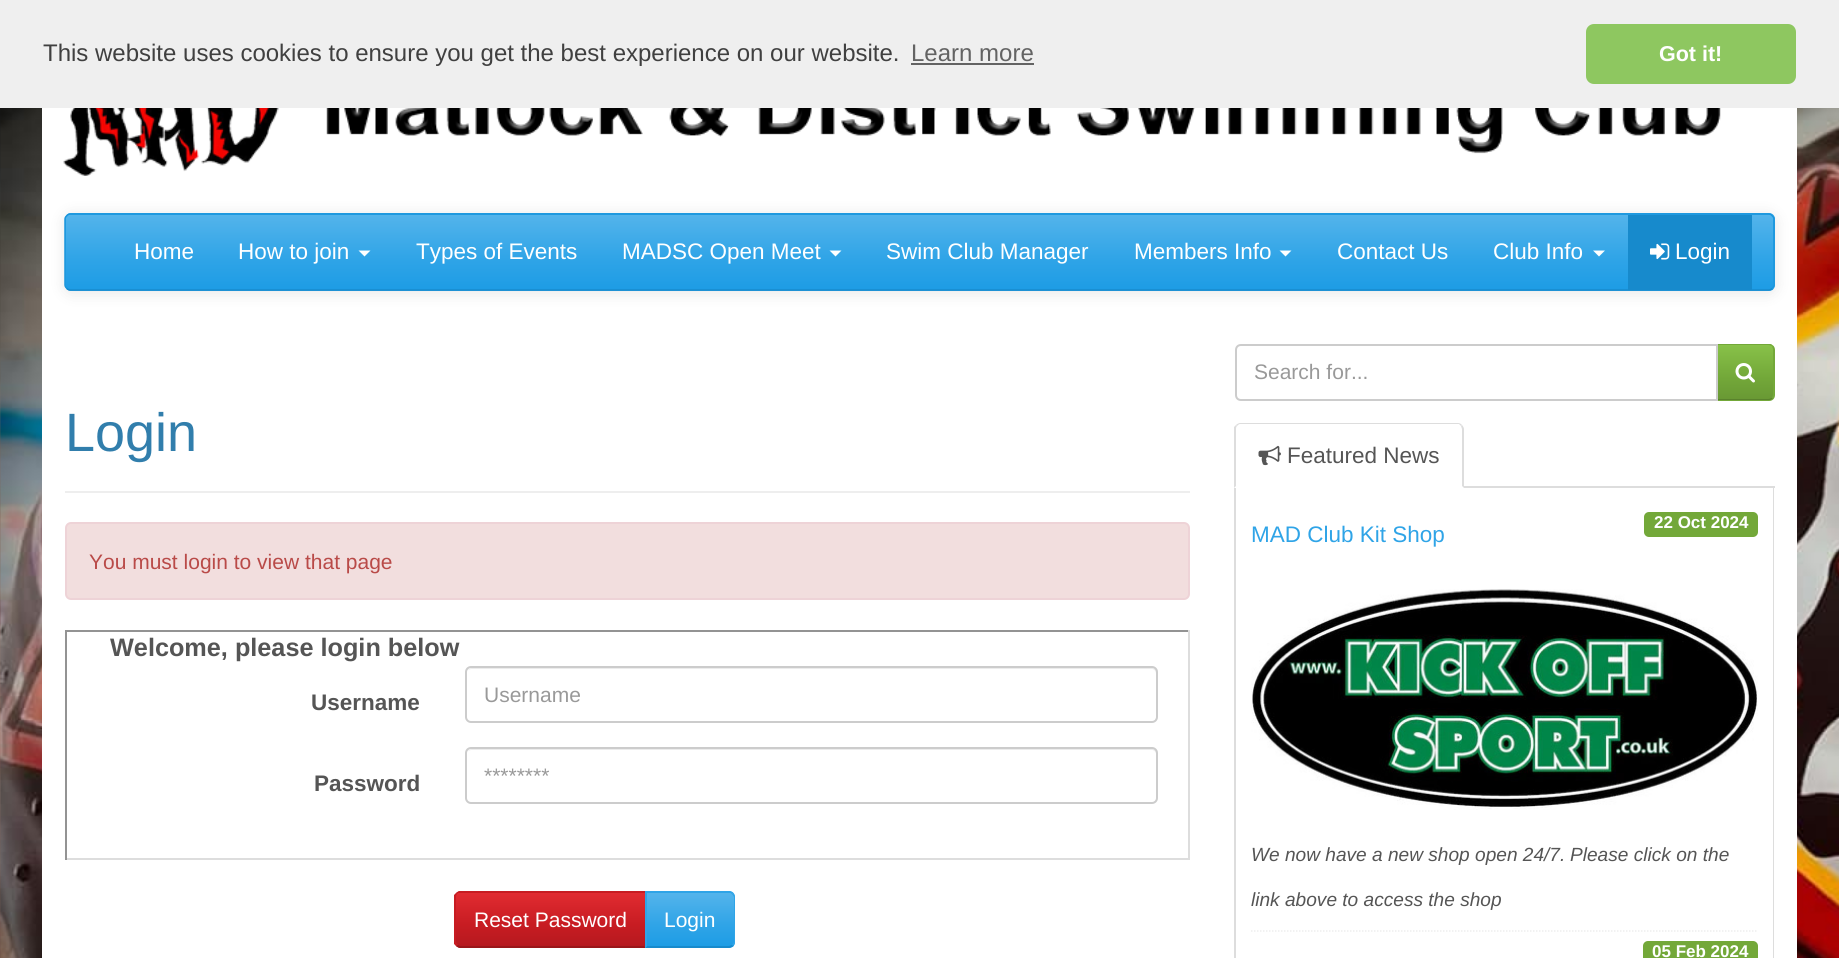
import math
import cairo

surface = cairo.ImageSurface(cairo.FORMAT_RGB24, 1839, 958)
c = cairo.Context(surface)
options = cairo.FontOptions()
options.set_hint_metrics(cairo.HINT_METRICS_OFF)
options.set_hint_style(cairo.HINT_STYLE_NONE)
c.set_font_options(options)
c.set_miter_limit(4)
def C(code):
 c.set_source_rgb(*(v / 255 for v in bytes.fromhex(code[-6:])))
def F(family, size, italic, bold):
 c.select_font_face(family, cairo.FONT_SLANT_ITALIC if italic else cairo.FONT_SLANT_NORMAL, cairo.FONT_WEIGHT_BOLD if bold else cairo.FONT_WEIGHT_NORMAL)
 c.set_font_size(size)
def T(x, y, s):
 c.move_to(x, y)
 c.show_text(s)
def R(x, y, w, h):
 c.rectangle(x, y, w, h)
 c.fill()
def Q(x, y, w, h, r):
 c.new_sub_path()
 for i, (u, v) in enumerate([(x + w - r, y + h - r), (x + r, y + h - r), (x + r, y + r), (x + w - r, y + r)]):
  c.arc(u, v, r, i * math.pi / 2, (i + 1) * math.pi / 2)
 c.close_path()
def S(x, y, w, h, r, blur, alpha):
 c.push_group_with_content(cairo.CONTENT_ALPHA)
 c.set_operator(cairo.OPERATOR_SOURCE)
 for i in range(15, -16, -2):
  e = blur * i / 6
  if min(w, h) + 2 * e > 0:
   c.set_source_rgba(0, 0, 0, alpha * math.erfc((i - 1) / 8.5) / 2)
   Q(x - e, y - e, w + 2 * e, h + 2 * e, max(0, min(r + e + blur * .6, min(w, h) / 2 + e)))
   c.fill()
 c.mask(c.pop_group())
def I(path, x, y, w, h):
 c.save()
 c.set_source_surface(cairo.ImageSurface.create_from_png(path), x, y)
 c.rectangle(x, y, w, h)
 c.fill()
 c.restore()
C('ffffff')
c.paint()
I('1.png',0,108,1839,850)
C('efefef')
R(0,0,1839,108)
F('Liberation Sans',24,0,0)
C('404040')
T(43,61,'This website uses cookies to ensure you get the best experience on our website.')
C('636363')
T(911,61,'Learn more')
R(911,63,123,2)
C('8ec760')
Q(1586,24,210,60,8)
c.fill()
F('Liberation Sans',21.5,0,1)
C('ffffff')
T(1659,61,'Got it!')
R(42,108,1755,850)
I('2.png',63,108,1658,68)
C('000000')
S(65,215,1710,78,6,7.5,.1)
C('2fa4e7')
Q(65,213,1710,78,6)
c.fill()
c.save()
Q(65,213,1710,78,6)
c.clip()
gradient = cairo.LinearGradient(920,214,920,290)
gradient.add_color_stop_rgba(0,0.329,0.706,0.922,1)
gradient.add_color_stop_rgba(.6,0.184,0.643,0.906,1)
gradient.add_color_stop_rgba(1,0.114,0.612,0.898,1)
c.set_source(gradient)
R(66,215,1707,75)
c.restore()
c.new_path()
c.move_to(1772,288.5)
c.curve_to(1771,289.5,1770,290,1768.5,290)
c.line_to(70.5,290)
c.curve_to(69,290,68,289.5,67,288.5)
C('178acc')
c.set_line_width(1.5)
c.stroke()
c.new_path()
c.move_to(67,288.5)
c.curve_to(66,287.5,65,286.5,65,285)
c.line_to(65,219)
c.curve_to(65,217.5,66,216.5,67,215.5)
c.curve_to(68,214.5,69,214,70.5,214)
c.line_to(1768.5,214)
c.curve_to(1770,214,1771,214.5,1772,215.5)
c.curve_to(1773,216.5,1774,217.5,1774,219)
c.line_to(1774,285)
c.curve_to(1774,286.5,1773,287.5,1772,288.5)
C('1995dc')
c.stroke()
F('Liberation Sans',22.5,0,0)
C('ffffff')
T(134,259,'Home')
T(238,259,'How to join')
c.new_path()
c.move_to(358.5,250.5)
c.line_to(370.5,250.5)
c.line_to(364.5,256.5)
c.close_path()
c.fill()
T(416,259,'Types of Events')
T(622,259,'MADSC Open Meet')
c.new_path()
c.move_to(829.5,250.5)
c.line_to(841.5,250.5)
c.line_to(835.5,256.5)
c.close_path()
c.fill()
T(886,259,'Swim Club Manager')
T(1134,259,'Members Info')
c.new_path()
c.move_to(1279.5,250.5)
c.line_to(1291.5,250.5)
c.line_to(1285.5,256.5)
c.close_path()
c.fill()
T(1337,259,'Contact Us')
T(1493,259,'Club Info')
c.new_path()
c.move_to(1593,250.5)
c.line_to(1605,250.5)
c.line_to(1599,256.5)
c.close_path()
c.fill()
C('178acc')
R(1628,215,124,75)
I('3.png',1650,243,20,17)
C('ffffff')
T(1675,259,'Login')
C('eeeeee')
R(65,491,1125,2)
F('Liberation Sans',54,0,0)
C('317eac')
T(65,451,'Login')
C('f2dede')
Q(66,523,1123,76,5)
c.fill_preserve()
C('eed3d7')
c.set_line_width(2)
c.stroke()
F('Liberation Sans',21,0,0)
C('b94a48')
T(89,569,'You must login to view that page')
C('939393')
R(65,630,1125,2)
C('dddddd')
R(1188,630,2,230)
R(65,858,1125,2)
C('939393')
R(65,630,2,230)
F('Liberation Sans',25.25,0,1)
C('555555')
T(110,656,'Welcome, please login below')
F('Liberation Sans',22.5,0,1)
T(311,710,'Username')
C('ececec')
c.new_path()
c.move_to(471,669)
c.line_to(1152,669)
c.curve_to(1154,669,1156,671,1156,674)
c.line_to(1156,718)
c.line_to(1155,721)
c.curve_to(1156,720,1157,718,1157,717)
c.line_to(1157,673)
c.curve_to(1157,670,1155,668,1152,668)
c.line_to(472,668)
c.curve_to(470,668,469,669,468,670)
c.close_path()
c.fill()
Q(466,667,691,55,5)
C('cccccc')
c.stroke()
F('Liberation Sans',21,0,0)
C('999999')
T(484,702,'Username')
C('ececec')
c.new_path()
c.move_to(471,750)
c.line_to(1152,750)
c.curve_to(1154,750,1156,752,1156,754)
c.line_to(1156,801)
c.curve_to(1157,800,1157,799,1157,798)
c.line_to(1157,754)
c.curve_to(1157,751,1155,749,1152,749)
c.line_to(472,749)
c.curve_to(470,749,469,750,468,751)
c.close_path()
c.fill()
Q(466,748,691,55,5)
C('cccccc')
c.stroke()
C('999999')
T(484,783,'********')
F('Liberation Sans',22.5,0,1)
C('555555')
T(314,791,'Password')
C('c71c22')
c.new_path()
c.move_to(461,891)
c.line_to(647,891)
c.line_to(647,948)
c.line_to(461,948)
c.curve_to(457.5,948,455,945.5,455,942)
c.line_to(455,897)
c.curve_to(455,893.5,457.5,891,461,891)
c.close_path()
c.fill()
c.save()
c.new_path()
c.move_to(461,891)
c.line_to(647,891)
c.line_to(647,948)
c.line_to(461,948)
c.curve_to(457.5,948,455,945.5,455,942)
c.line_to(455,897)
c.curve_to(455,893.5,457.5,891,461,891)
c.close_path()
c.clip()
gradient = cairo.LinearGradient(551,893,551,947)
gradient.add_color_stop_rgba(0,0.882,0.169,0.192,1)
gradient.add_color_stop_rgba(.6,0.78,0.11,0.133,1)
gradient.add_color_stop_rgba(1,0.71,0.098,0.122,1)
c.set_source(gradient)
R(456,893,189,54)
c.restore()
c.new_path()
c.move_to(460,891)
c.curve_to(459,891,457,892,456,893)
c.line_to(457,894)
c.curve_to(458,893,459,892,460,892)
c.line_to(645,892)
c.line_to(646,891)
c.close_path()
c.fill()
C('9a161a')
c.new_path()
c.move_to(460,948)
c.line_to(646,948)
c.line_to(644,946)
c.line_to(460,946)
c.line_to(458,945)
c.line_to(456,946)
c.curve_to(457,947,459,948,460,948)
c.close_path()
c.fill()
C('c71c22')
c.new_path()
c.move_to(454,895)
c.line_to(456,893)
c.line_to(457,894)
c.curve_to(455,897,456,901,456,904)
c.line_to(456,942)
c.line_to(458,945)
c.line_to(456,946)
c.line_to(454,944)
c.close_path()
c.fill()
F('Liberation Sans',21,0,0)
C('ffffff')
T(474,927,'Reset Password')
C('2fa4e7')
c.new_path()
c.move_to(645,891)
c.line_to(729,891)
c.curve_to(732.5,891,735,893.5,735,897)
c.line_to(735,942)
c.curve_to(735,945.5,732.5,948,729,948)
c.line_to(645,948)
c.close_path()
c.fill()
c.save()
c.new_path()
c.move_to(645,891)
c.line_to(729,891)
c.curve_to(732.5,891,735,893.5,735,897)
c.line_to(735,942)
c.curve_to(735,945.5,732.5,948,729,948)
c.line_to(645,948)
c.close_path()
c.clip()
gradient = cairo.LinearGradient(690,893,690,947)
gradient.add_color_stop_rgba(0,0.329,0.706,0.922,1)
gradient.add_color_stop_rgba(.6,0.184,0.643,0.906,1)
gradient.add_color_stop_rgba(1,0.114,0.612,0.898,1)
c.set_source(gradient)
R(647,893,87,54)
c.restore()
c.new_path()
c.move_to(645,891)
c.line_to(646,892)
c.line_to(729,892)
c.line_to(732,894)
c.line_to(733,893)
c.curve_to(732,892,730,891,729,891)
c.close_path()
c.fill()
c.new_path()
c.move_to(735,942)
c.line_to(735,897)
c.curve_to(735,896,734,894,733,893)
c.line_to(732,894)
c.line_to(734,897)
c.line_to(734,942)
c.line_to(732,945)
c.line_to(733,946)
c.curve_to(734,945,735,944,735,942)
c.close_path()
c.fill()
C('178acc')
c.new_path()
c.move_to(729,948)
c.curve_to(730,948,732,947,733,946)
c.line_to(732,945)
c.line_to(729,946)
c.line_to(647,946)
c.line_to(645,948)
c.close_path()
c.fill()
C('2fa4e7')
c.new_path()
c.move_to(645,891)
c.line_to(645,948)
c.line_to(647,946)
c.line_to(646,946)
c.line_to(646,892)
c.close_path()
c.fill()
C('ffffff')
T(664,927,'Login')
C('73a839')
c.new_path()
c.move_to(1716,344)
c.line_to(1769,344)
c.curve_to(1772.5,344,1775,346.5,1775,350)
c.line_to(1775,395)
c.curve_to(1775,398.5,1772.5,401,1769,401)
c.line_to(1716,401)
c.close_path()
c.fill()
gradient = cairo.LinearGradient(1745,345,1745,399)
gradient.add_color_stop_rgba(0,0.533,0.757,0.286,1)
gradient.add_color_stop_rgba(.6,0.451,0.659,0.224,1)
gradient.add_color_stop_rgba(1,0.412,0.6,0.204,1)
c.set_source(gradient)
R(1718,345,55,54)
C('73a839')
c.new_path()
c.move_to(1718,345)
c.line_to(1768,345)
c.curve_to(1770,345,1771,346,1772,346)
c.curve_to(1772,344,1770,344,1768,344)
c.line_to(1716,344)
c.line_to(1718,346)
c.close_path()
c.move_to(1772,346)
c.curve_to(1774,346,1774,348,1774,350)
c.line_to(1774,394)
c.curve_to(1774,396,1774,398,1772,398)
c.curve_to(1772,397,1773,396,1773,394)
c.line_to(1773,350)
c.curve_to(1773,348,1772,347,1772,346)
c.close_path()
c.fill()
C('59822c')
c.new_path()
c.move_to(1772,398)
c.curve_to(1772,400,1770,400,1768,400)
c.line_to(1716,400)
c.line_to(1718,398)
c.line_to(1718,399)
c.line_to(1768,399)
c.curve_to(1770,399,1771,398,1772,398)
c.close_path()
c.fill()
C('ffffff')
c.new_path()
c.move_to(1241,345)
c.line_to(1717,345)
c.line_to(1717,400)
c.line_to(1241,400)
c.curve_to(1238,400,1236,398,1236,395)
c.line_to(1236,350)
c.curve_to(1236,347,1238,345,1241,345)
c.close_path()
c.fill_preserve()
C('cccccc')
c.stroke()
C('999999')
T(1254,379,'Search for...')
I('4.png',1735,363,20,20)
C('dddddd')
R(1464,486,311,2)
c.new_path()
c.move_to(1240,423)
c.curve_to(1239,423,1237,424,1236,425)
c.line_to(1237,426)
c.curve_to(1238,425,1239,424,1240,424)
c.line_to(1459,424)
c.line_to(1461,426)
c.line_to(1462,425)
c.curve_to(1461,424,1460,423,1458,423)
c.close_path()
c.fill()
c.new_path()
c.move_to(1464,488)
c.line_to(1464,429)
c.curve_to(1464,428,1463,426,1462,425)
c.line_to(1461,426)
c.line_to(1462,429)
c.line_to(1462,486)
c.close_path()
c.fill()
c.new_path()
c.move_to(1234,488)
c.line_to(1234,427)
c.line_to(1236,425)
c.line_to(1237,426)
c.curve_to(1236,427,1236,428,1236,429)
c.line_to(1236,486)
c.close_path()
c.fill()
I('5.png',1258,445,23,21)
F('Liberation Sans',22.5,0,0)
C('555555')
T(1287,463,'Featured News')
C('dddddd')
c.set_fill_rule(cairo.FILL_RULE_EVEN_ODD)
c.new_path()
c.move_to(1234,488)
c.line_to(1774,488)
c.line_to(1774,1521)
c.curve_to(1774,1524,1772,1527,1768,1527)
c.line_to(1240,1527)
c.curve_to(1237,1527,1234,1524,1234,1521)
c.close_path()
c.move_to(1236,488)
c.line_to(1773,488)
c.line_to(1773,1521)
c.curve_to(1773,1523,1771,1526,1768,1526)
c.line_to(1240,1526)
c.curve_to(1238,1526,1236,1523,1236,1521)
c.close_path()
c.fill()
c.new_path()
c.move_to(1251,931)
c.line_to(1758,931)
C('eeeeee')
c.set_line_width(1.5)
c.set_dash([1.5,1.5])
c.stroke()
C('73a839')
Q(1644,512,114,25,5)
c.fill()
F('Liberation Sans',17,0,1)
C('ffffff')
T(1654,528,'22 Oct 2024')
F('Liberation Sans',22.5,0,0)
C('2fa4e7')
T(1251,542,'MAD Club Kit Shop')
I('6.png',1251,589,507,221)
F('Liberation Sans',19.1,1,0)
C('555555')
T(1251,861,'We now have a new shop open 24/7.')
T(1570,861,'Please click on the')
T(1251,906,'link above to access the shop')
C('73a839')
Q(1643,941,115,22,5)
c.fill()
F('Liberation Sans',17,0,1)
C('ffffff')
T(1652,957,'05 Feb 2024')
surface.write_to_png('o.png')
